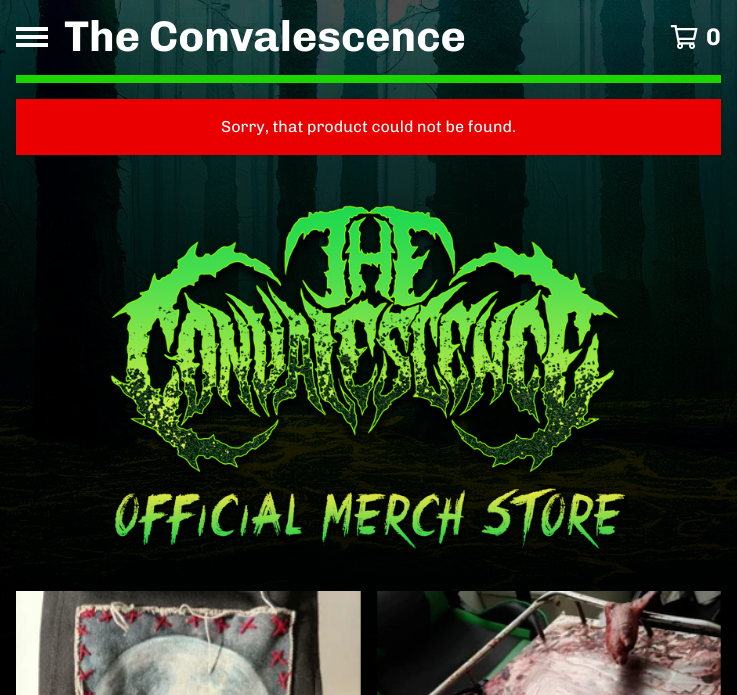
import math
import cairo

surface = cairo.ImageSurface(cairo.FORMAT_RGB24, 737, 695)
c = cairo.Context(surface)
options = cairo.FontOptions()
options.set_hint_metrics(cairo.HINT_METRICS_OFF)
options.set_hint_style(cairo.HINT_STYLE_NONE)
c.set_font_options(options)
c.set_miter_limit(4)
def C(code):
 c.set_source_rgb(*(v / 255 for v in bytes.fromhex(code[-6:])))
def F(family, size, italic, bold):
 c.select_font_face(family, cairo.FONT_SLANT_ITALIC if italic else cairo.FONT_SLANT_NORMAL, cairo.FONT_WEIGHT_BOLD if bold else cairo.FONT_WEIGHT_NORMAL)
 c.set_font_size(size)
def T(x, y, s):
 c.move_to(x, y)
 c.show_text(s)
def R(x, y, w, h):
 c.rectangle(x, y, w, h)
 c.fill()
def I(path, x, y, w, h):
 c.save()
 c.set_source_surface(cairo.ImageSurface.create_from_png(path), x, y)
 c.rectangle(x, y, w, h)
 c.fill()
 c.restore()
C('ffffff')
c.paint()
I('1.png',0,0,737,691)
gradient = cairo.LinearGradient(368,0,369,695)
gradient.add_color_stop_rgba(0,0,0,0,0)
gradient.add_color_stop_rgba(1,0,0,0,1)
c.set_source(gradient)
R(0,23,737,672)
C('1dd500')
R(16,75,705,8)
C('ffffff')
R(16,35,32,4)
R(16,27,32,4)
R(16,43,32,4)
F('Chivo',43,0,1)
T(64,51,'The Convalescence')
I('2.png',670,25,28,24)
F('Chivo',24,0,1)
T(706,45,'0')
C('eb0000')
R(16,99,705,56)
F('Chivo',16,0,0)
C('ffffff')
T(221,132,'Sorry, that product could not be found.')
I('3.png',110,205,516,345)
I('4.png',16,591,345,104)
I('5.png',377,591,344,104)
surface.write_to_png('o.png')
